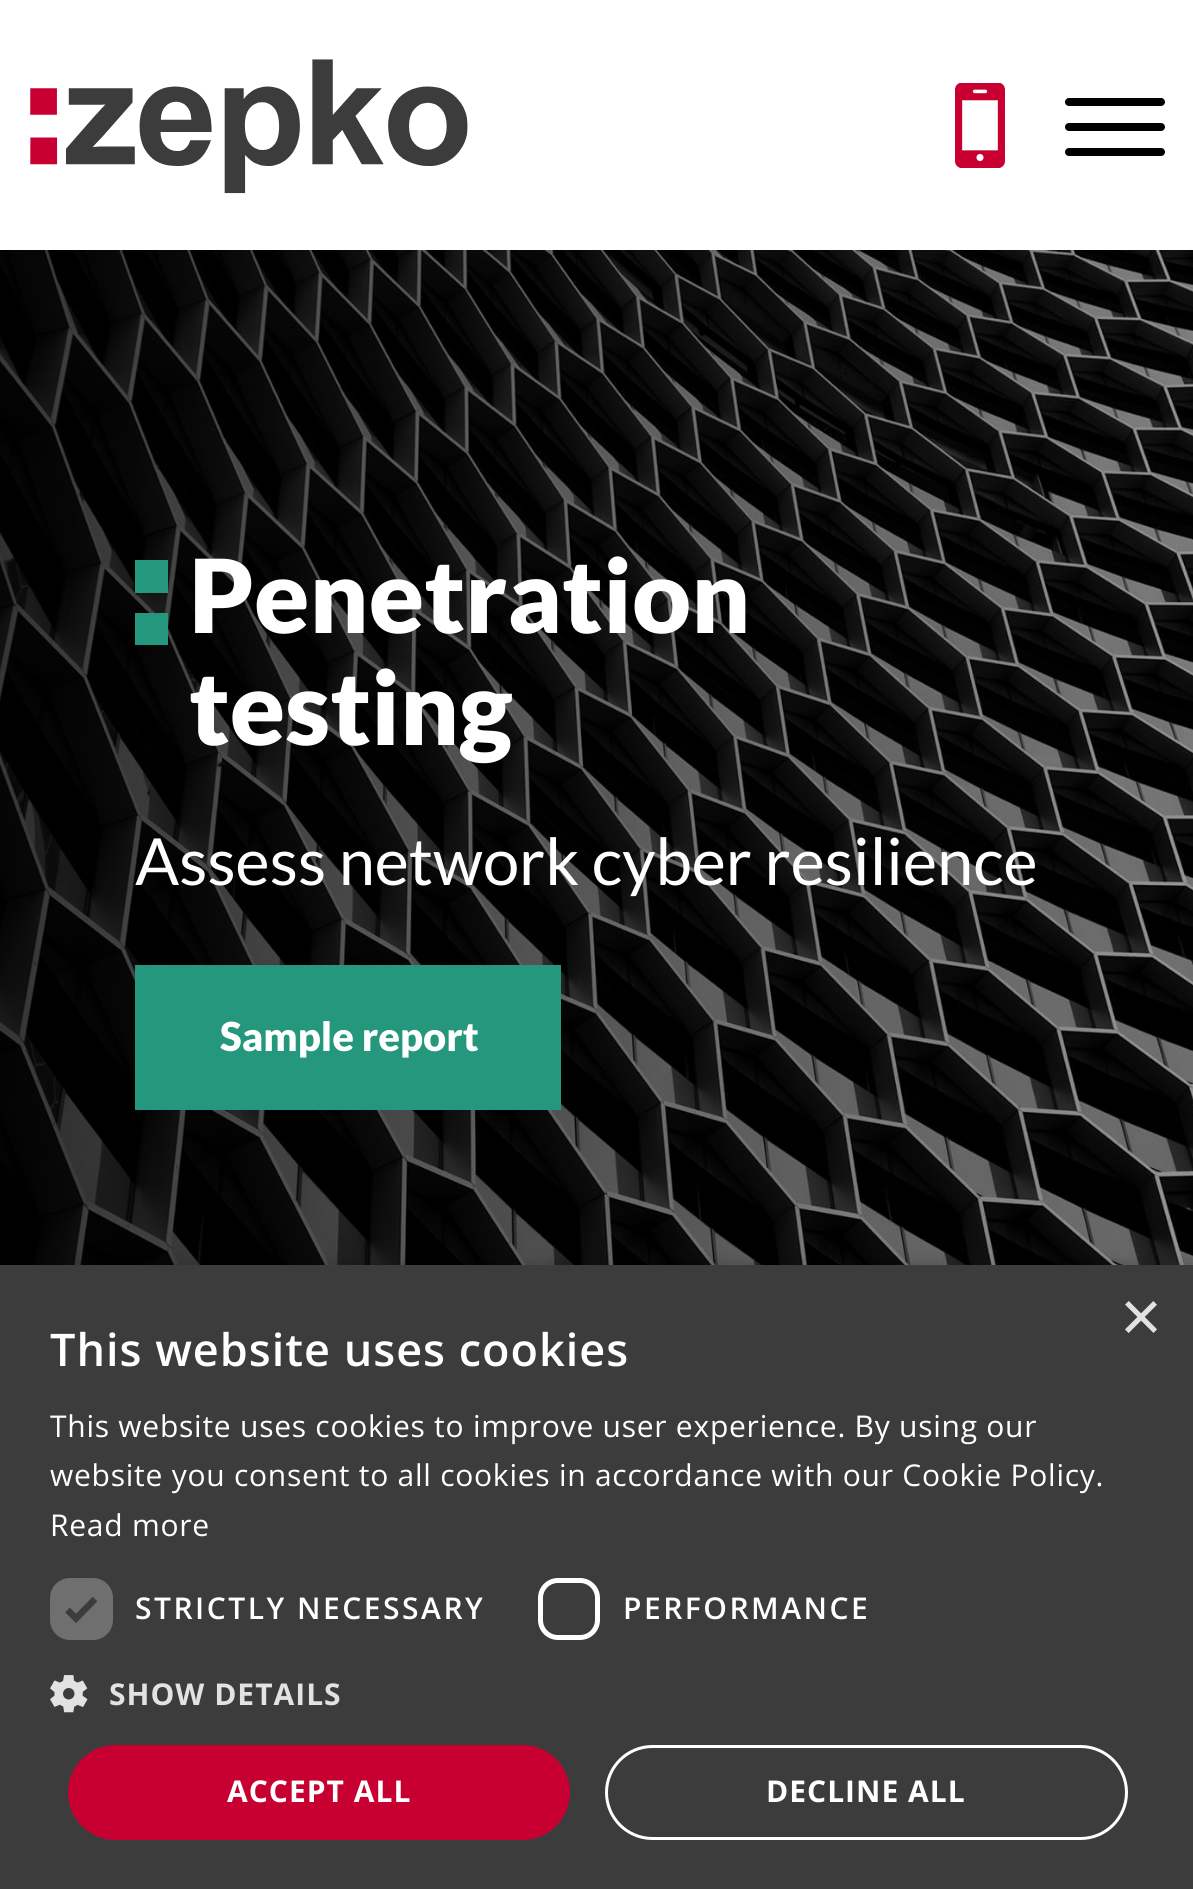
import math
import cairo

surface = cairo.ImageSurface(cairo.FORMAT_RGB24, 1193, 1889)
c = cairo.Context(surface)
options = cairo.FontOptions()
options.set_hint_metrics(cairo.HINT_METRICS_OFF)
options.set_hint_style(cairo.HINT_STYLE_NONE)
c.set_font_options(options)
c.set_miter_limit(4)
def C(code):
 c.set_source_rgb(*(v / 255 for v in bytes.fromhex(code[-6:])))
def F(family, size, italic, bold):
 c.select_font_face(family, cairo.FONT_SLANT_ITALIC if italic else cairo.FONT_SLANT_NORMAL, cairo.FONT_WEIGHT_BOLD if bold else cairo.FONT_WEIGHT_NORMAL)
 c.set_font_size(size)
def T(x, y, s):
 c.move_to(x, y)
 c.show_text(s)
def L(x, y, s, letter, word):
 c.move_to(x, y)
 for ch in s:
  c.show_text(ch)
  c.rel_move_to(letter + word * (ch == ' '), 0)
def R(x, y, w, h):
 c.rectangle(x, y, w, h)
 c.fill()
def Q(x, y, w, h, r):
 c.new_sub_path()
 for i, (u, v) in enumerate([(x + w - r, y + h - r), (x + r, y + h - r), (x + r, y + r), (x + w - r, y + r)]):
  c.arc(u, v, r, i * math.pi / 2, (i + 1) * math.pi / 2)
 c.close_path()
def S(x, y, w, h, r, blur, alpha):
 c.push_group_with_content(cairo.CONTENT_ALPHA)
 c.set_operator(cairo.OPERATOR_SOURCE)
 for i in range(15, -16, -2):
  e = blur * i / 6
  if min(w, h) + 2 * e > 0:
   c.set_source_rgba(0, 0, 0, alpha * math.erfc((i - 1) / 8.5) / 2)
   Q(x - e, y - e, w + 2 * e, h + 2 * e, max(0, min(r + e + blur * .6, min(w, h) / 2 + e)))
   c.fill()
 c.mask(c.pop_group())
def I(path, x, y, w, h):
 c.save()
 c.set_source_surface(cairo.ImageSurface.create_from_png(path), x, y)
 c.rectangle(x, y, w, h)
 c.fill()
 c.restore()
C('ffffff')
c.paint()
I('1.png',30,59,438,135)
I('2.png',955,83,50,85)
C('000000')
Q(1065,98,100,8,4)
c.fill()
Q(1065,123,100,8,4)
c.fill()
Q(1065,148,100,8,4)
c.fill()
I('3.png',0,250,1193,1015)
C('24977c')
R(135,560,33,33)
F('Lato Black',102,0,0)
C('ffffff')
T(189,633,'Penetration')
C('24977c')
R(135,613,33,32)
C('ffffff')
T(189,745,'testing')
F('Lato',65,0,0)
T(135,885,'Assess network cyber resilience')
C('24977c')
R(140,968,418,137)
R(135,965,425,3)
R(558,965,3,145)
R(135,1105,425,5)
R(135,965,5,145)
F('Lato Black',40,0,0)
C('ffffff')
T(220,1051,'Sample report')
C('000000')
S(3,1270,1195,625,0,10,.35)
C('3c3c3c')
R(0,1265,1193,624)
F('Liberation Sans',72,0,0)
C('e2e2e2')
T(1120,1341,'×')
F('Open Sans SemiBold',45,0,0)
C('ffffff')
L(50,1366,'This website uses cookies',1,0)
F('Open Sans',30,0,0)
L(50,1437,'This website uses cookies to improve user experience. By using our',.75,0)
L(50,1486,'website you consent to all cookies in accordance with our Cookie Policy.',.75,0)
L(50,1536,'Read more',.75,0)
C('6f6f6f')
Q(50,1578,63,62,20)
c.fill()
c.new_path()
c.move_to(67.5,1610)
c.line_to(76,1618.5)
c.line_to(95,1599)
C('3c3c3c')
c.set_line_width(6.6)
c.stroke()
F('Open Sans SemiBold',30,0,0)
C('ffffff')
L(135,1619,'STRICTLY NECESSARY',2.5,0)
Q(540.5,1580.5,57,57,17.5)
c.set_line_width(5)
c.stroke()
L(623,1619,'PERFORMANCE',2.5,0)
I('4.png',50,1675,38,38)
F('Open Sans',30,0,1)
C('e2e2e2')
L(109,1705,'SHOW DETAILS',1,0)
C('c80032')
Q(68,1745,502,95,47.5)
c.fill()
C('ffffff')
L(227,1802,'ACCEPT ALL',1,0)
Q(606.5,1746.5,520,92,46)
c.set_line_width(3)
c.stroke()
L(766,1802,'DECLINE ALL',1,0)
surface.write_to_png('o.png')
